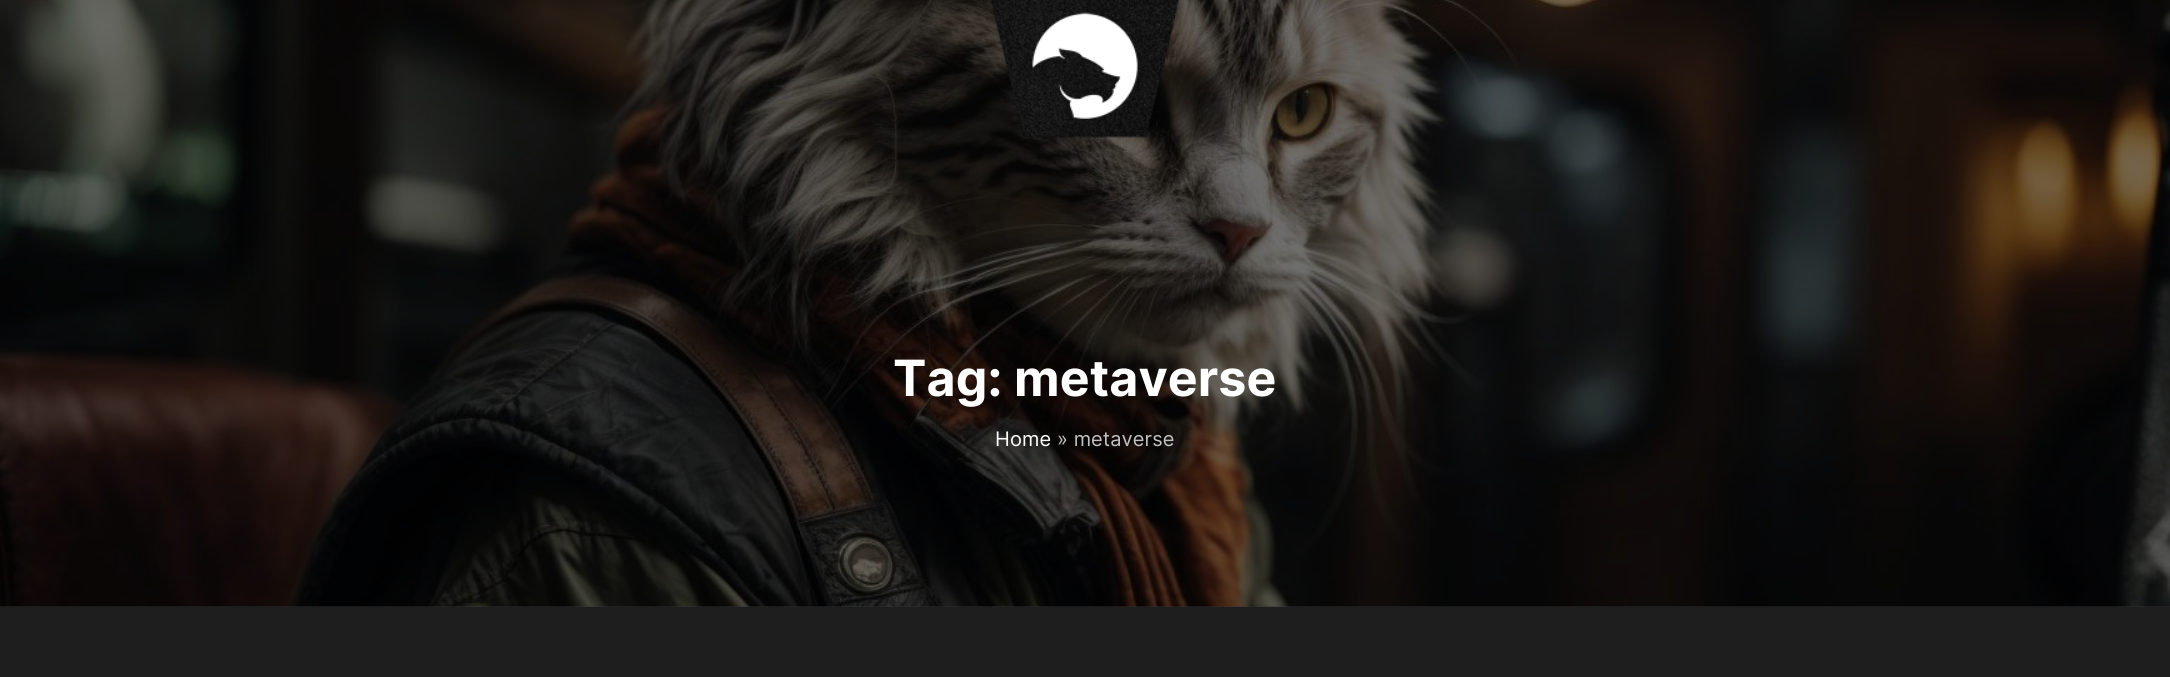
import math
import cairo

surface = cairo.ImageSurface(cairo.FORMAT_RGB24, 2170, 677)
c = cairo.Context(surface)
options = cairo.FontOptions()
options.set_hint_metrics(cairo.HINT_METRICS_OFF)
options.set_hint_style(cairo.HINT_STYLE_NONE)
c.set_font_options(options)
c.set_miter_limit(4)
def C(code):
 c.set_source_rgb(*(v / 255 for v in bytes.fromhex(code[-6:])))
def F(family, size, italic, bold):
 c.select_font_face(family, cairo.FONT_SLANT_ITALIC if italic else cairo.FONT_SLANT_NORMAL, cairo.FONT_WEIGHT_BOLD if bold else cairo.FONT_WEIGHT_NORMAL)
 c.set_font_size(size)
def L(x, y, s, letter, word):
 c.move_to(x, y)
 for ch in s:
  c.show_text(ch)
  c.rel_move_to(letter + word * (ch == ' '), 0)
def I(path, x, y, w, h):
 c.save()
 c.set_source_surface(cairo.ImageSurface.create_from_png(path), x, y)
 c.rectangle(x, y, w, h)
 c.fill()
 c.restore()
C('1e1e1e')
c.paint()
I('1.png',0,0,2170,607)
I('2.png',991,0,188,138)
F('Inter',50,0,1)
C('ffffff')
L(893,396,'Tag: metaverse',.1,0)
F('Inter',20,0,0)
L(995,446,'Home',.1,0)
C('c1c1c1')
L(1057,446,'» metaverse',.1,0)
surface.write_to_png('o.png')
